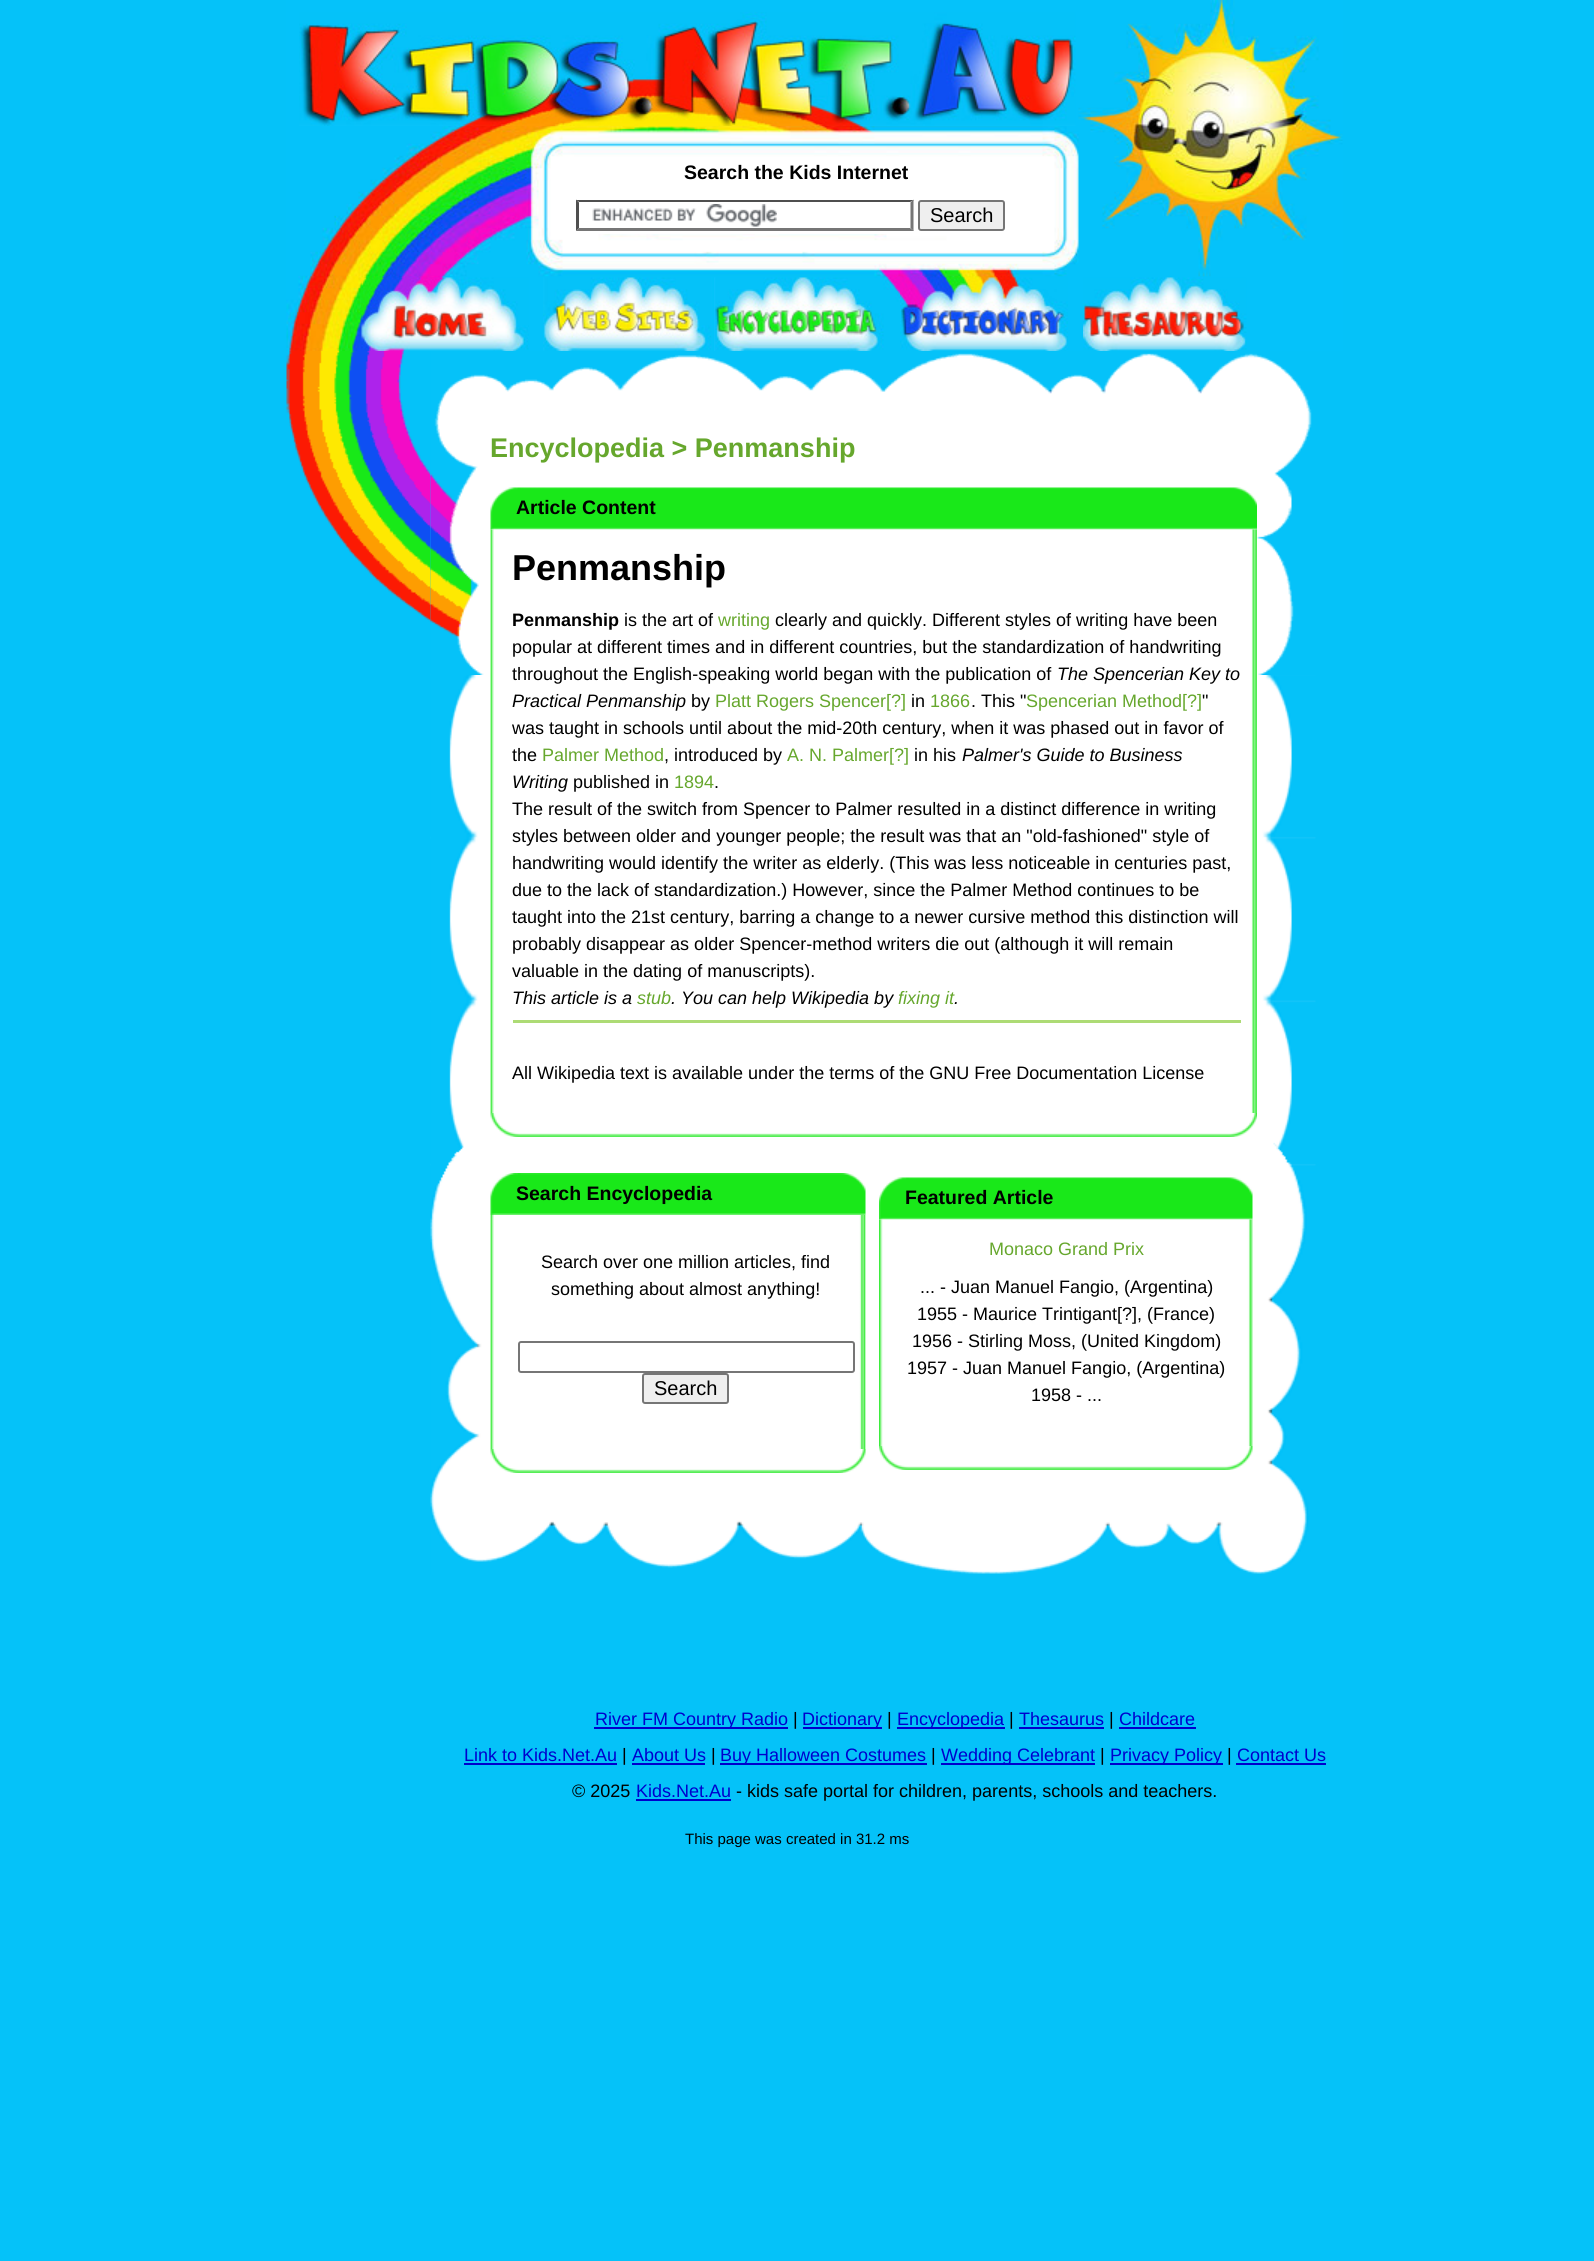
import math
import cairo

surface = cairo.ImageSurface(cairo.FORMAT_RGB24, 1594, 2261)
c = cairo.Context(surface)
options = cairo.FontOptions()
options.set_hint_metrics(cairo.HINT_METRICS_OFF)
options.set_hint_style(cairo.HINT_STYLE_NONE)
c.set_font_options(options)
c.set_miter_limit(4)
def C(code):
 c.set_source_rgb(*(v / 255 for v in bytes.fromhex(code[-6:])))
def F(family, size, italic, bold):
 c.select_font_face(family, cairo.FONT_SLANT_ITALIC if italic else cairo.FONT_SLANT_NORMAL, cairo.FONT_WEIGHT_BOLD if bold else cairo.FONT_WEIGHT_NORMAL)
 c.set_font_size(size)
def T(x, y, s):
 c.move_to(x, y)
 c.show_text(s)
def R(x, y, w, h):
 c.rectangle(x, y, w, h)
 c.fill()
def Q(x, y, w, h, r):
 c.new_sub_path()
 for i, (u, v) in enumerate([(x + w - r, y + h - r), (x + r, y + h - r), (x + r, y + r), (x + w - r, y + r)]):
  c.arc(u, v, r, i * math.pi / 2, (i + 1) * math.pi / 2)
 c.close_path()
def I(path, x, y, w, h):
 c.save()
 c.set_source_surface(cairo.ImageSurface.create_from_png(path), x, y)
 c.rectangle(x, y, w, h)
 c.fill()
 c.restore()
C('05c2f9')
c.paint()
I('1.png',286,0,1057,351)
I('2.png',299,12,777,114)
C('ffffff')
R(586,179,313,55)
F('Liberation Sans',19.5,0,1)
C('000000')
T(684,179,'Search the Kids Internet')
I('3.png',592,204,185,23)
C('4f4f4f')
c.new_path()
c.move_to(576,200)
c.line_to(914,200)
c.line_to(910,202)
c.line_to(579,202)
c.close_path()
c.fill()
C('767676')
c.new_path()
c.move_to(913.5,199.5)
c.line_to(913.5,231)
c.line_to(910.5,228)
c.line_to(910.5,202.5)
c.close_path()
c.fill()
c.new_path()
c.move_to(914,231)
c.line_to(576,231)
c.line_to(579,228)
c.line_to(910,228)
c.close_path()
c.fill()
C('4f4f4f')
c.new_path()
c.move_to(576,231)
c.line_to(576,199.5)
c.line_to(579,202.5)
c.line_to(579,228)
c.close_path()
c.fill()
C('efefef')
Q(919,201,85,29,2)
c.fill_preserve()
C('767676')
c.stroke()
F('Liberation Sans',20,0,0)
C('000000')
T(930,222,'Search')
I('4.png',361,277,168,74)
I('5.png',543,277,173,74)
I('6.png',715,277,185,74)
I('7.png',900,277,168,74)
I('8.png',1083,277,164,74)
I('9.png',286,351,145,324)
I('10.png',430,351,886,1224)
I('11.png',430,351,886,324)
I('12.png',430,1142,886,433)
F('Liberation Sans',27,0,1)
C('66a72d')
T(490,457,'Encyclopedia > Penmanship')
I('13.png',490,487,767,43)
F('Liberation Sans',19.5,0,1)
C('000000')
T(516,514,'Article Content')
I('14.png',490,529,767,584)
F('Liberation Sans',36,0,1)
T(512,580,'Penmanship')
F('Liberation Sans',18,0,1)
T(512,626,'Penmanship')
F('Liberation Sans',18,0,0)
T(624,626,'is the art of')
C('66a72d')
T(718,626,'writing')
C('000000')
T(775,626,'clearly and quickly. Different styles of writing have been')
T(512,653,'popular at different times and in different countries, but the standardization of handwriting')
T(512,680,'throughout the English-speaking world began with the publication of')
F('Liberation Sans',18,1,0)
T(1057,680,'The Spencerian Key to')
T(512,707,'Practical Penmanship')
F('Liberation Sans',18,0,0)
T(691,707,'by')
C('66a72d')
T(715,707,'Platt Rogers Spencer[?]')
C('000000')
T(911,707,'in')
C('66a72d')
T(930,707,'1866')
C('000000')
T(971,707,'. This "')
C('66a72d')
T(1026,707,'Spencerian Method[?]')
C('000000')
T(1202,707,'"')
T(512,734,'was taught in schools until about the mid-20th century, when it was phased out in favor of')
T(512,761,'the')
C('66a72d')
T(542,761,'Palmer Method')
C('000000')
T(664,761,', introduced by')
C('66a72d')
T(787,761,'A. N. Palmer[?]')
C('000000')
T(914,761,'in his')
F('Liberation Sans',18,1,0)
T(962,761,'Palmer\'s Guide to Business')
T(512,788,'Writing')
F('Liberation Sans',18,0,0)
T(573,788,'published in')
C('66a72d')
T(674,788,'1894')
C('000000')
T(714,788,'.')
T(512,815,'The result of the switch from Spencer to Palmer resulted in a distinct difference in writing')
T(512,842,'styles between older and younger people; the result was that an "old-fashioned" style of')
T(512,869,'handwriting would identify the writer as elderly. (This was less noticeable in centuries past,')
T(512,896,'due to the lack of standardization.) However, since the Palmer Method continues to be')
T(512,923,'taught into the 21st century, barring a change to a newer cursive method this distinction will')
T(512,950,'probably disappear as older Spencer-method writers die out (although it will remain')
T(512,977,'valuable in the dating of manuscripts).')
F('Liberation Sans',18,1,0)
T(512,1004,'This article is a')
C('66a72d')
T(637,1004,'stub')
C('000000')
T(671,1004,'. You can help Wikipedia by')
C('66a72d')
T(898,1004,'fixing it')
C('000000')
T(954,1004,'.')
C('addb75')
R(513,1020,728,3)
F('Liberation Sans',18,0,0)
C('000000')
T(512,1079,'All Wikipedia text is available under the terms of the GNU Free Documentation License')
I('15.png',490,1113,767,24)
I('16.png',490,1173,376,42)
F('Liberation Sans',19.5,0,1)
T(516,1200,'Search Encyclopedia')
I('17.png',490,1215,376,234)
F('Liberation Sans',18,0,0)
T(541,1268,'Search over one million articles, find')
T(551,1295,'something about almost anything!')
Q(519,1342,335,30,2)
C('767676')
c.stroke()
C('efefef')
Q(643,1374,85,29,2)
c.fill_preserve()
C('767676')
c.stroke()
F('Liberation Sans',20,0,0)
C('000000')
T(654,1395,'Search')
I('18.png',490,1449,376,24)
I('19.png',879,1177,374,43)
F('Liberation Sans',19.5,0,1)
T(905,1204,'Featured Article')
I('20.png',879,1219,374,227)
F('Liberation Sans',18,0,0)
C('66a72d')
T(989,1255,'Monaco Grand Prix')
C('000000')
T(920,1293,'... - Juan Manuel Fangio, (Argentina)')
T(917,1320,'1955 - Maurice Trintigant[?], (France)')
T(912,1347,'1956 - Stirling Moss, (United Kingdom)')
T(907,1374,'1957 - Juan Manuel Fangio, (Argentina)')
T(1031,1401,'1958 - ...')
I('21.png',879,1446,374,24)
C('0000cd')
R(594,1727,194,2)
T(595,1725,'River FM Country Radio')
C('000000')
T(793,1725,'|')
C('0000cd')
R(803,1727,79,2)
T(802,1725,'Dictionary')
C('000000')
T(887,1725,'|')
C('0000cd')
R(897,1727,108,2)
T(897,1725,'Encyclopedia')
C('000000')
T(1009,1725,'|')
C('0000cd')
T(1019,1725,'Thesaurus')
R(1019,1727,85,2)
C('000000')
T(1109,1725,'|')
C('0000cd')
T(1119,1725,'Childcare')
R(1119,1727,77,2)
T(464,1761,'Link to Kids.Net.Au')
R(464,1763,153,2)
C('000000')
T(622,1761,'|')
C('0000cd')
T(632,1761,'About Us')
R(632,1763,73,2)
C('000000')
T(711,1761,'|')
C('0000cd')
R(720,1763,207,2)
T(720,1761,'Buy Halloween Costumes')
C('000000')
T(931,1761,'|')
C('0000cd')
R(941,1763,154,2)
T(941,1761,'Wedding Celebrant')
C('000000')
T(1100,1761,'|')
C('0000cd')
R(1110,1763,113,2)
T(1110,1761,'Privacy Policy')
C('000000')
T(1227,1761,'|')
C('0000cd')
T(1237,1761,'Contact Us')
R(1236,1763,90,2)
C('000000')
T(572,1797,'© 2025')
C('0000cd')
T(636,1797,'Kids.Net.Au')
R(636,1799,95,2)
C('000000')
T(736,1797,'- kids safe portal for children, parents, schools and teachers.')
F('Liberation Sans',15,0,0)
T(685,1844,'This page was created in 31.2 ms')
surface.write_to_png('o.png')
